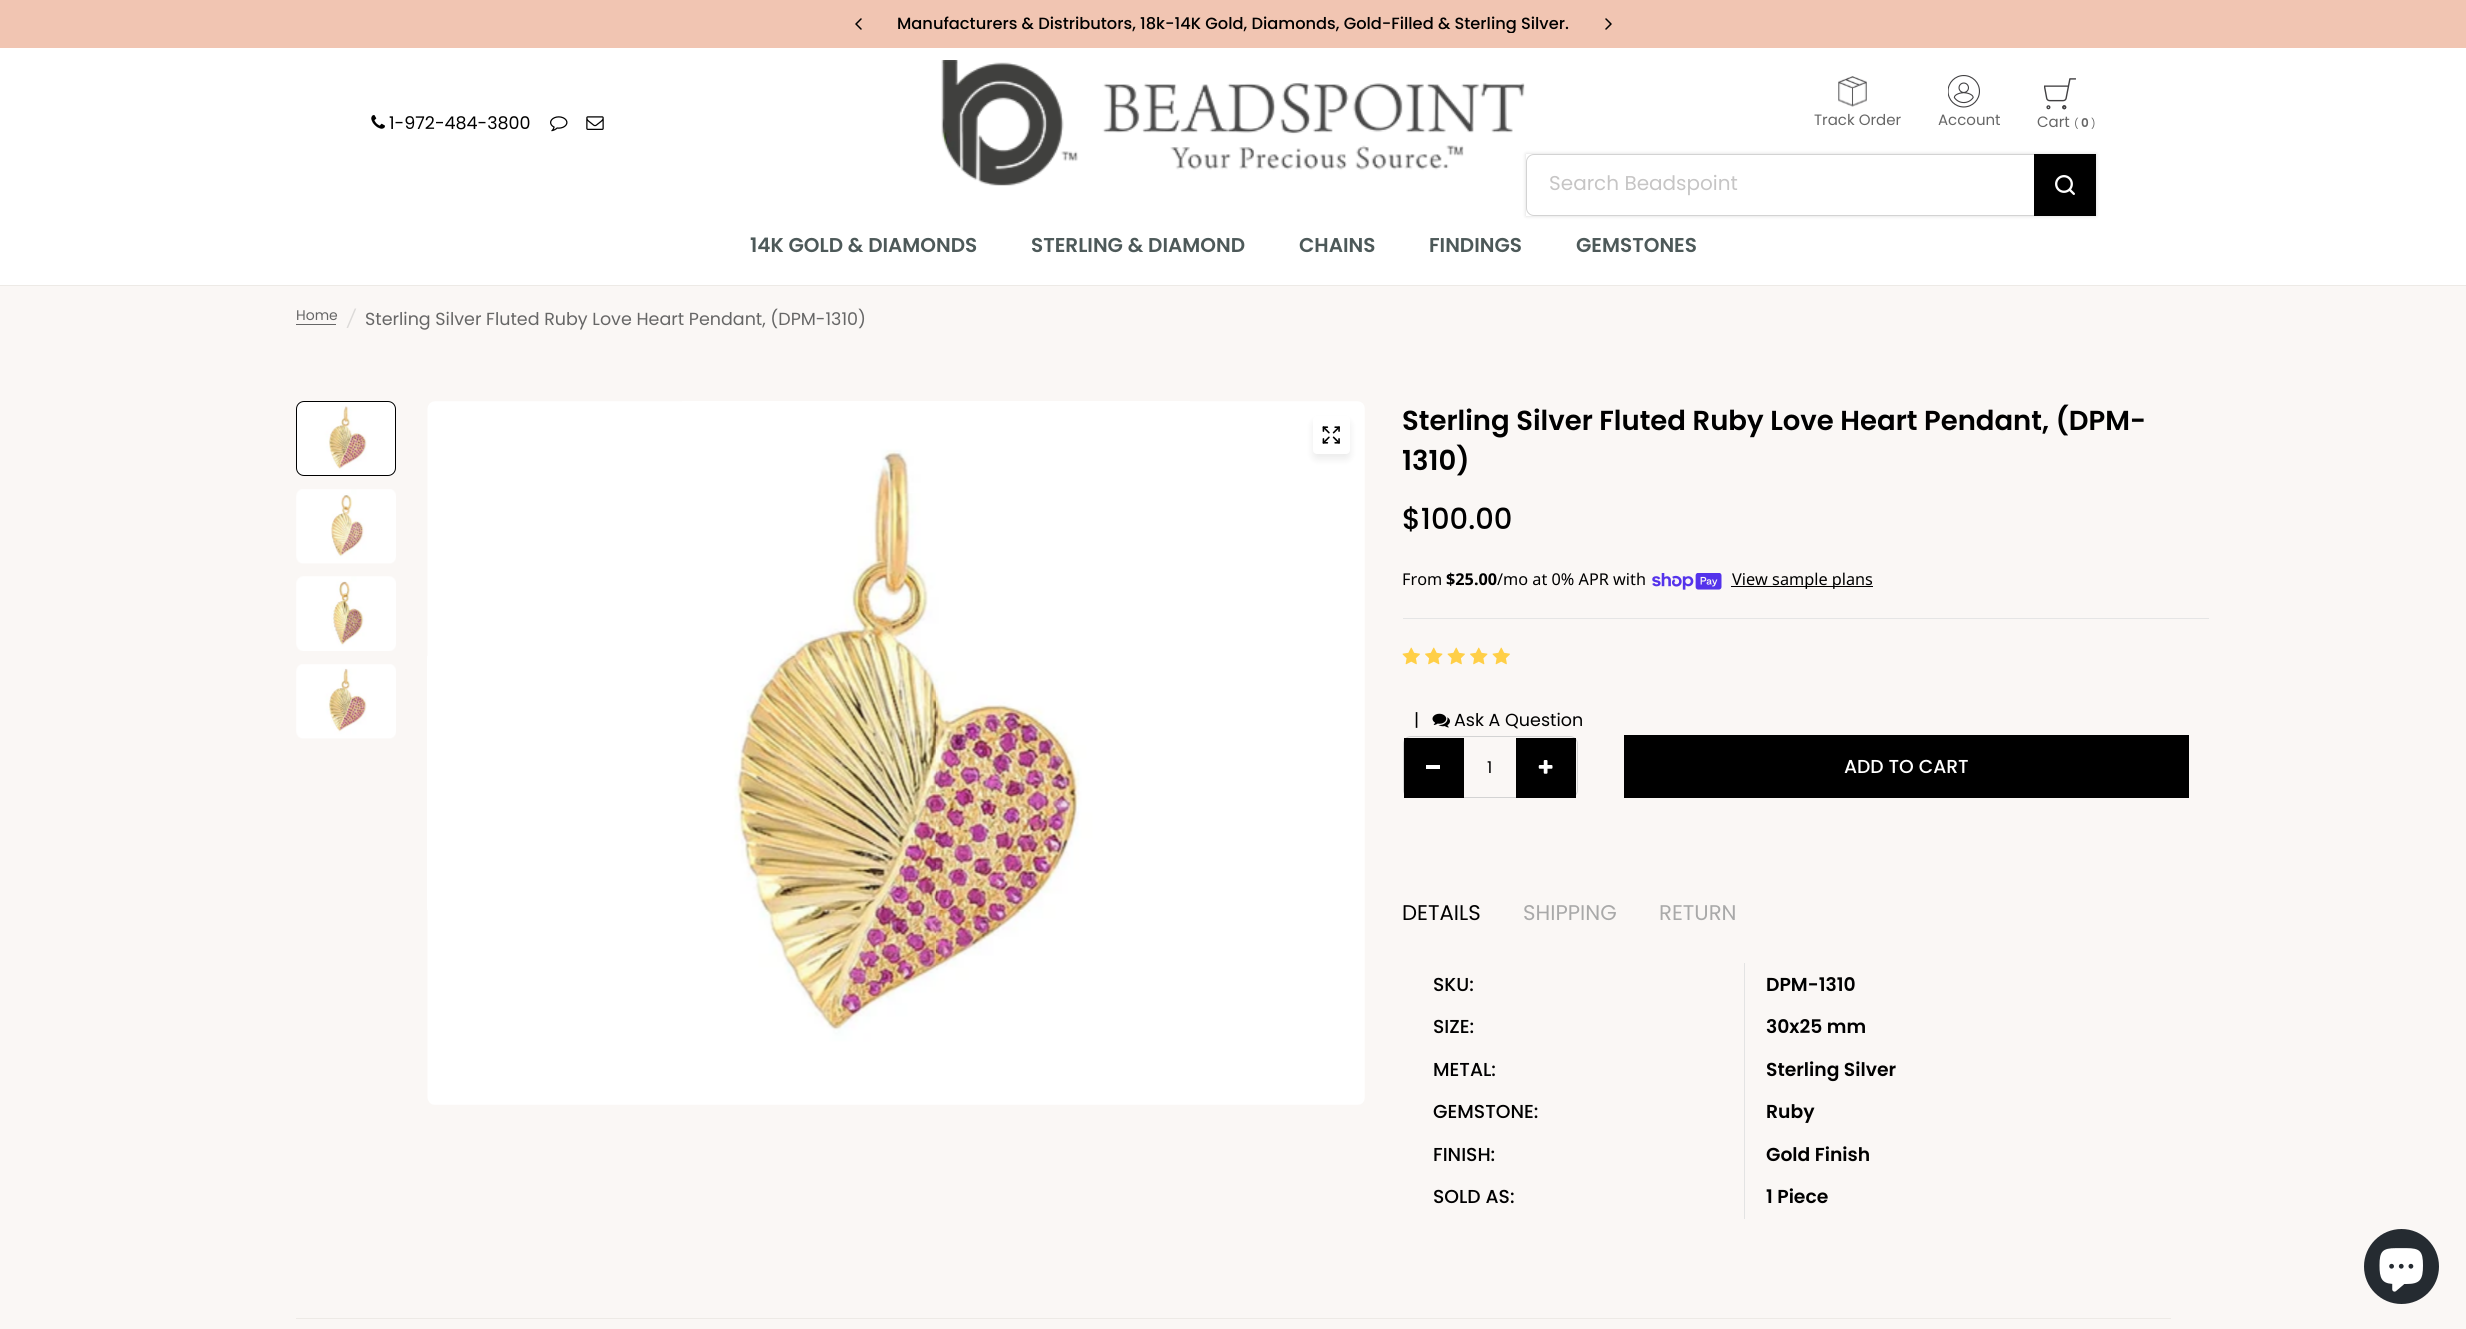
import math
import cairo

surface = cairo.ImageSurface(cairo.FORMAT_RGB24, 2466, 1329)
c = cairo.Context(surface)
options = cairo.FontOptions()
options.set_hint_metrics(cairo.HINT_METRICS_OFF)
options.set_hint_style(cairo.HINT_STYLE_NONE)
c.set_font_options(options)
c.set_miter_limit(4)
def C(code):
 c.set_source_rgb(*(v / 255 for v in bytes.fromhex(code[-6:])))
def F(family, size, italic, bold):
 c.select_font_face(family, cairo.FONT_SLANT_ITALIC if italic else cairo.FONT_SLANT_NORMAL, cairo.FONT_WEIGHT_BOLD if bold else cairo.FONT_WEIGHT_NORMAL)
 c.set_font_size(size)
def T(x, y, s):
 c.move_to(x, y)
 c.show_text(s)
def R(x, y, w, h):
 c.rectangle(x, y, w, h)
 c.fill()
def Q(x, y, w, h, r):
 c.new_sub_path()
 for i, (u, v) in enumerate([(x + w - r, y + h - r), (x + r, y + h - r), (x + r, y + r), (x + w - r, y + r)]):
  c.arc(u, v, r, i * math.pi / 2, (i + 1) * math.pi / 2)
 c.close_path()
def S(x, y, w, h, r, blur, alpha):
 c.push_group_with_content(cairo.CONTENT_ALPHA)
 c.set_operator(cairo.OPERATOR_SOURCE)
 for i in range(15, -16, -2):
  e = blur * i / 6
  if min(w, h) + 2 * e > 0:
   c.set_source_rgba(0, 0, 0, alpha * math.erfc((i - 1) / 8.5) / 2)
   Q(x - e, y - e, w + 2 * e, h + 2 * e, max(0, min(r + e + blur * .6, min(w, h) / 2 + e)))
   c.fill()
 c.mask(c.pop_group())
def I(path, x, y, w, h):
 c.save()
 c.set_source_surface(cairo.ImageSurface.create_from_png(path), x, y)
 c.rectangle(x, y, w, h)
 c.fill()
 c.restore()
C('ffffff')
c.paint()
C('f1c5b2')
R(0,0,2466,48)
c.new_path()
c.move_to(861,19)
c.line_to(856,24)
c.line_to(861,29)
C('000000')
c.set_line_width(1.5)
c.set_line_cap(cairo.LINE_CAP_ROUND)
c.set_line_join(cairo.LINE_JOIN_ROUND)
c.stroke()
c.save()
c.rectangle(859,15,750,18)
c.clip()
F('Poppins Medium',16.25,0,0)
T(897,29,'Manufacturers & Distributors, 18k-14K Gold, Diamonds, Gold-Filled & Sterling Silver.')
c.restore()
c.new_path()
c.move_to(1606,19)
c.line_to(1611,24)
c.line_to(1606,29)
c.stroke()
I('1.png',371,115,14,14)
F('Poppins',17.5,0,0)
T(389,129,'1-972-484-3800')
I('2.png',550,116,18,16)
I('3.png',586,116,18,14)
C('000000')
S(1526,154,570,62,0,2,.15)
I('4.png',941,60,584,126)
I('5.png',1838,76,29,31)
F('Poppins',15,0,0)
C('666666')
T(1814,125,'Track Order')
I('6.png',1948,75,32,33)
T(1938,125,'Account')
I('7.png',2044,78,32,32)
T(2037,127,'Cart')
F('Poppins',10,0,0)
T(2074,127,'(')
F('Poppins SemiBold',12,0,0)
T(2081,127,'0')
F('Poppins',10,0,0)
T(2091,127,')')
C('ffffff')
R(1526,154,508,62)
Q(1526.5,154.5,569,61,7.5)
C('d3d3d3')
c.set_line_width(1)
c.set_line_cap(cairo.LINE_CAP_BUTT)
c.set_line_join(cairo.LINE_JOIN_MITER)
c.stroke()
F('Poppins',20,0,0)
C('c6c5c5')
T(1549,190,'Search Beadspoint')
C('000000')
R(2034,154,62,62)
I('8.png',2055,175,20,20)
F('Poppins SemiBold',20,0,0)
C('4d5959')
T(750,252,'14K GOLD & DIAMONDS')
T(1031,252,'STERLING & DIAMOND')
T(1299,252,'CHAINS')
T(1429,252,'FINDINGS')
T(1576,252,'GEMSTONES')
C('edeae6')
R(0,285,2466,1)
C('faf7f5')
R(0,286,2466,1043)
F('Poppins',14,0,0)
C('666666')
T(296,320,'Home')
R(296,324,40,1)
F('Poppins',17.5,1,0)
C('dcdad8')
T(347,325,'/')
F('Poppins',17.5,0,0)
C('666666')
T(365,325,'Sterling Silver Fluted Ruby Love Heart Pendant, (DPM-1310)')
I('9.png',296,401,100,75)
Q(298,403,96,71,6)
C('ffffff')
c.set_line_width(4)
c.stroke()
Q(296.5,401.5,99,74,7.5)
C('000000')
c.set_line_width(1)
c.stroke()
I('10.png',296,489,100,75)
I('11.png',296,576,100,75)
I('12.png',296,664,100,75)
I('13.png',427,401,938,704)
C('000000')
S(1313,421,37,38,4,4,.08)
C('ffffff')
Q(1313,416,37,38,4)
c.fill()
I('14.png',1322,426,18,18)
C('e5e5e5')
R(1403,618,806,1)
F('Poppins SemiBold',27.5,0,0)
C('000000')
T(1402,430,'Sterling Silver Fluted Ruby Love Heart Pendant, (DPM-')
T(1402,470,'1310)')
F('Poppins Medium',29,0,0)
T(1402,529,'$100.00')
F('Noto Sans',16.25,0,0)
T(1402,585,'From')
F('Noto Sans',16.25,0,1)
T(1446,585,'$25.00')
F('Noto Sans',16.25,0,0)
T(1497,585,'/mo at 0% APR with')
I('15.png',1652,573,70,17)
R(1731,586,142,1)
T(1732,585,'View sample plans')
I('16.png',1402,647,18,18)
I('17.png',1425,647,18,18)
I('16.png',1447,647,18,18)
I('17.png',1470,647,18,18)
I('16.png',1492,647,18,18)
F('Poppins',17.5,0,0)
T(1414,726,'|')
I('18.png',1432,713,18,15)
T(1454,726,'Ask A Question')
Q(1403.5,736.5,174,61,7.5)
C('d3d3d3')
c.stroke()
C('000000')
R(1404,738,60,60)
C('ffffff')
R(1426,765,14,4)
F('Poppins',16.25,0,0)
C('000000')
T(1487,773,'1')
R(1516,738,60,60)
I('19.png',1538,760,15,14)
R(1624,735,565,63)
F('Poppins Medium',18.75,0,0)
C('ffffff')
T(1844,773,'ADD TO CART')
F('Poppins',21.25,0,0)
C('000000')
T(1402,920,'DETAILS')
C('a9a9a9')
T(1523,920,'SHIPPING')
T(1659,920,'RETURN')
F('Poppins Medium',18.75,0,0)
C('000000')
T(1433,991,'SKU:')
F('Poppins SemiBold',18.75,0,0)
T(1766,991,'DPM-1310')
F('Poppins Medium',18.75,0,0)
T(1433,1033,'SIZE:')
F('Poppins SemiBold',18.75,0,0)
T(1766,1033,'30x25 mm')
F('Poppins Medium',18.75,0,0)
T(1433,1076,'METAL:')
F('Poppins SemiBold',18.75,0,0)
T(1766,1076,'Sterling Silver')
F('Poppins Medium',18.75,0,0)
T(1433,1118,'GEMSTONE:')
F('Poppins SemiBold',18.75,0,0)
T(1766,1118,'Ruby')
F('Poppins Medium',18.75,0,0)
T(1433,1161,'FINISH:')
F('Poppins SemiBold',18.75,0,0)
T(1766,1161,'Gold Finish')
C('e3e3e3')
R(1744,963,1,256)
F('Poppins Medium',18.75,0,0)
C('000000')
T(1433,1203,'SOLD AS:')
F('Poppins SemiBold',18.75,0,0)
T(1766,1203,'1 Piece')
C('edeae6')
R(296,1318,1875,1)
C('252b31')
c.new_path()
c.arc(2401.5,1266.5,37.5,0,2 * math.pi)
c.fill()
I('20.png',2379,1248,44,44)
surface.write_to_png('o.png')
